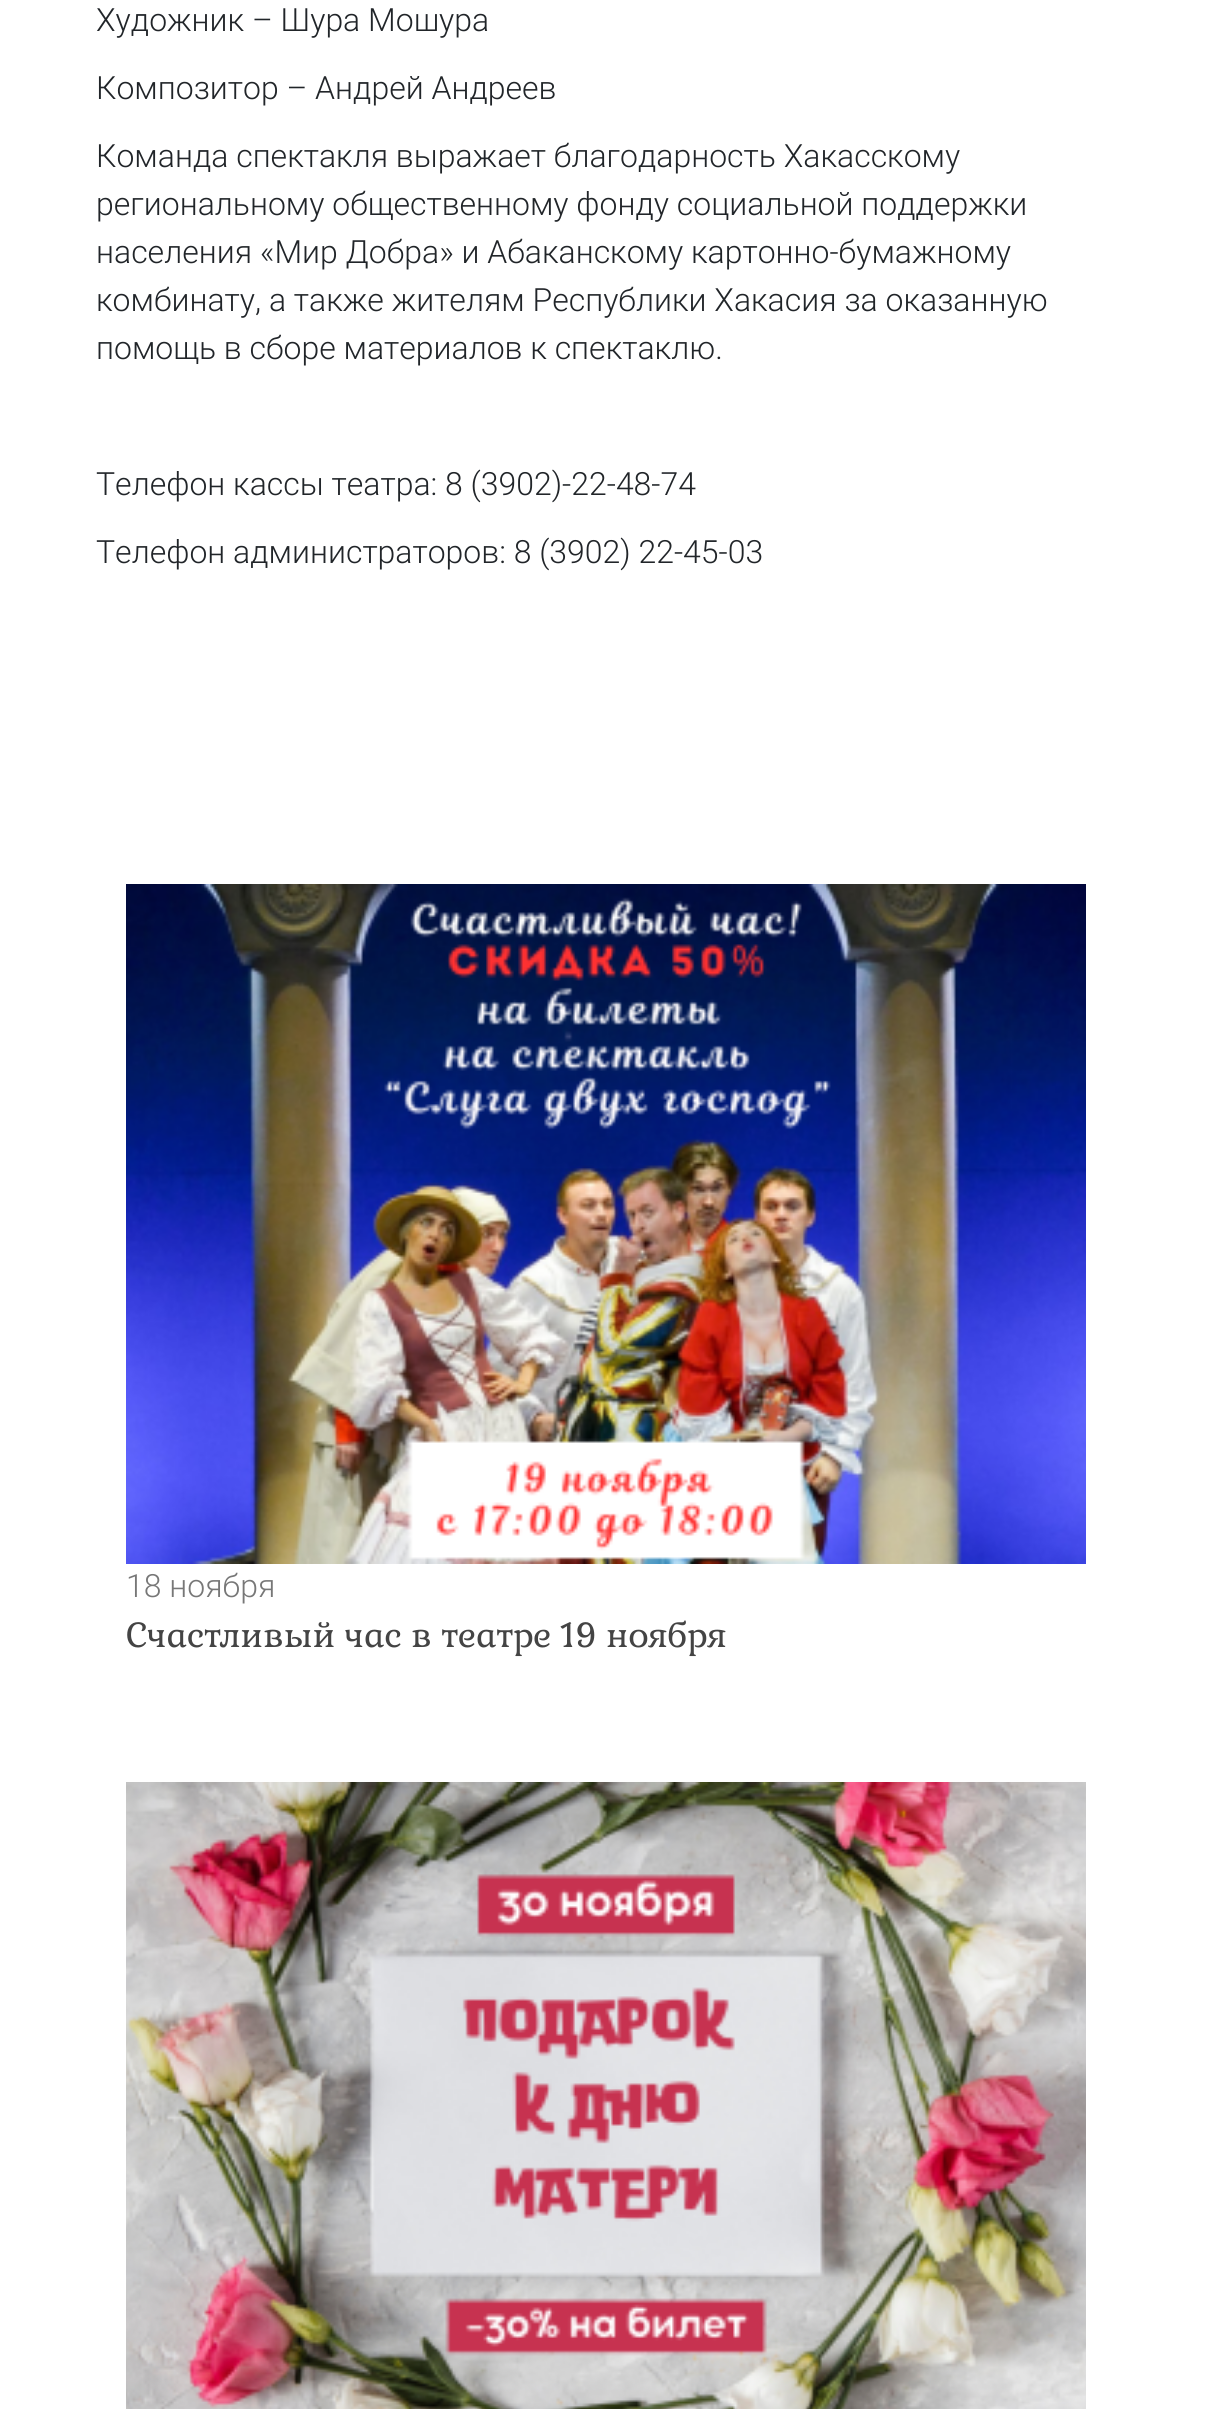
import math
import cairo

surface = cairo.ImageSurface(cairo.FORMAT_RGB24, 1211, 2409)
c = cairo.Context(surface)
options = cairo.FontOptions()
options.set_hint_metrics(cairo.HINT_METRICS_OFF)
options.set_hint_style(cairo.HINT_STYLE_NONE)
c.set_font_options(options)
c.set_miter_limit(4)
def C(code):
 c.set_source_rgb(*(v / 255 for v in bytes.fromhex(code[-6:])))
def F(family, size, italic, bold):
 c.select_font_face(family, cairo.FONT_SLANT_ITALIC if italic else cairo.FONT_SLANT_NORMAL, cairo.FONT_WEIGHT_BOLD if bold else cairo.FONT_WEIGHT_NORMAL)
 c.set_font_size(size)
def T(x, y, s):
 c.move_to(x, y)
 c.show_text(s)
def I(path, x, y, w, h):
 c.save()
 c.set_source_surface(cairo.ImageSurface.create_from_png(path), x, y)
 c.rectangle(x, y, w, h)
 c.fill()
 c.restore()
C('ffffff')
c.paint()
F('Roboto Light',32,0,0)
C('212529')
T(96,31,'Художник – Шура Мошура')
T(96,99,'Композитор – Андрей Андреев')
T(96,167,'Команда спектакля выражает благодарность Хакасскому')
T(96,215,'региональному общественному фонду социальной поддержки')
T(96,263,'населения «Мир Добра» и Абаканскому картонно-бумажному')
T(96,311,'комбинату, а также жителям Республики Хакасия за оказанную')
T(96,359,'помощь в сборе материалов к спектаклю.')
T(96,495,'Телефон кассы театра: 8 (3902)-22-48-74')
T(96,563,'Телефон администраторов: 8 (3902) 22-45-03')
I('1.png',126,884,960,680)
C('777777')
T(126,1597,'18 ноября')
F('Gabriela',34,0,0)
C('444444')
T(126,1647,'Счастливый час в театре 19 ноября')
I('2.png',126,1782,960,627)
surface.write_to_png('o.png')
